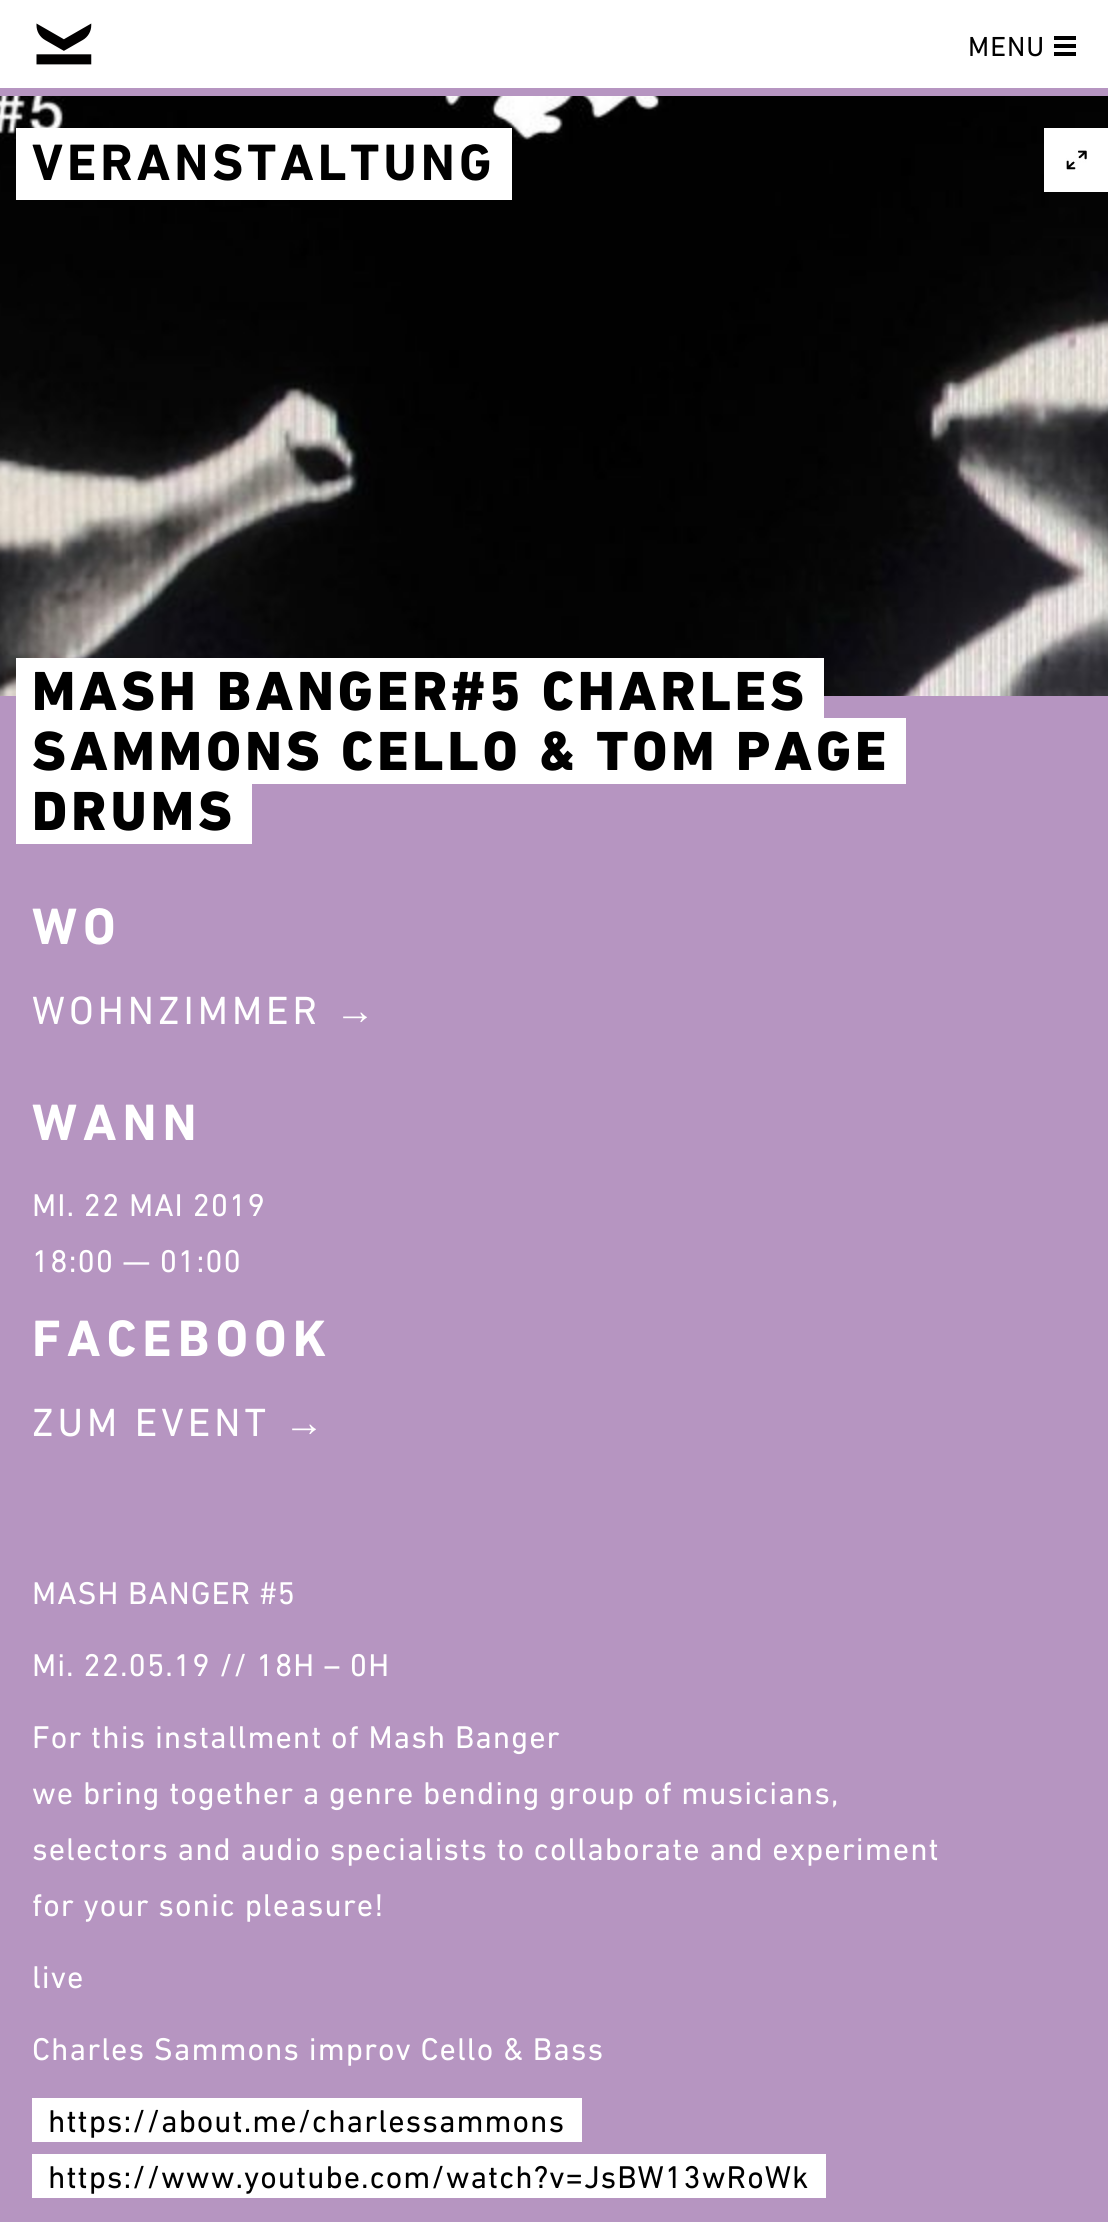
import math
import cairo

surface = cairo.ImageSurface(cairo.FORMAT_RGB24, 1108, 2222)
c = cairo.Context(surface)
options = cairo.FontOptions()
options.set_hint_metrics(cairo.HINT_METRICS_OFF)
options.set_hint_style(cairo.HINT_STYLE_NONE)
c.set_font_options(options)
c.set_miter_limit(4)
def C(code):
 c.set_source_rgb(*(v / 255 for v in bytes.fromhex(code[-6:])))
def F(family, size, italic, bold):
 c.select_font_face(family, cairo.FONT_SLANT_ITALIC if italic else cairo.FONT_SLANT_NORMAL, cairo.FONT_WEIGHT_BOLD if bold else cairo.FONT_WEIGHT_NORMAL)
 c.set_font_size(size)
def L(x, y, s, letter, word):
 c.move_to(x, y)
 for ch in s:
  c.show_text(ch)
  c.rel_move_to(letter + word * (ch == ' '), 0)
def R(x, y, w, h):
 c.rectangle(x, y, w, h)
 c.fill()
def I(path, x, y, w, h):
 c.save()
 c.set_source_surface(cairo.ImageSurface.create_from_png(path), x, y)
 c.rectangle(x, y, w, h)
 c.fill()
 c.restore()
C('b695c1')
c.paint()
C('ffffff')
R(0,0,1108,88)
I('1.png',36,23,56,42)
F('DIN Next',28,0,0)
C('000000')
L(968,56,'MENU',1,0)
R(1054,36,22,4)
R(1054,44,22,4)
R(1054,52,22,4)
I('2.png',0,96,1108,600)
C('ffffff')
R(1044,128,64,64)
I('3.png',1066,150,21,20)
R(16,128,16,72)
R(32,128,480,72)
F('DIN Next',52,0,1)
C('000000')
L(32,180,'VERANSTALTUNG',4,0)
C('ffffff')
R(32,658,792,60)
F('DIN Next Black',56,0,0)
C('000000')
L(32,710,'MASH BANGER#5 CHARLES',4,0)
C('ffffff')
R(32,718,874,66)
C('000000')
L(32,770,'SAMMONS CELLO & TOM PAGE',4,0)
C('ffffff')
R(16,658,16,186)
R(32,784,220,60)
C('000000')
L(32,830,'DRUMS',4,0)
F('DIN Next',52,0,1)
C('ffffff')
L(32,944,'WO',6,0)
F('DIN Next',40,0,0)
L(32,1024,'WOHNZIMMER',4,0)
F('Liberation Sans',40,0,0)
L(335,1024,'→',4,0)
F('DIN Next',52,0,1)
L(32,1140,'WANN',6,0)
F('DIN Next',32,0,0)
L(32,1216,'MI. 22 MAI 2019',1,0)
L(32,1272,'18:00 — 01:00',1,0)
F('DIN Next',52,0,1)
L(32,1356,'FACEBOOK',6,0)
F('DIN Next',40,0,0)
L(32,1436,'ZUM EVENT',4,0)
F('Liberation Sans',40,0,0)
L(284,1436,'→',4,0)
F('DIN Next',32,0,0)
L(32,1604,'MASH BANGER #5',1,0)
L(32,1676,'Mi. 22.05.19 // 18H – 0H',1,0)
L(32,1748,'For this installment of Mash Banger',1,0)
L(32,1804,'we bring together a genre bending group of musicians,',1,0)
L(32,1860,'selectors and audio specialists to collaborate and experiment',1,0)
L(32,1916,'for your sonic pleasure!',1,0)
L(32,1988,'live',1,0)
L(32,2060,'Charles Sammons improv Cello & Bass',1,0)
R(32,2098,550,44)
C('000000')
L(48,2132,'https://about.me/charlessammons',1,0)
C('ffffff')
R(32,2154,794,44)
C('000000')
L(48,2188,'https://www.youtube.com/watch?v=JsBW13wRoWk',1,0)
surface.write_to_png('o.png')
